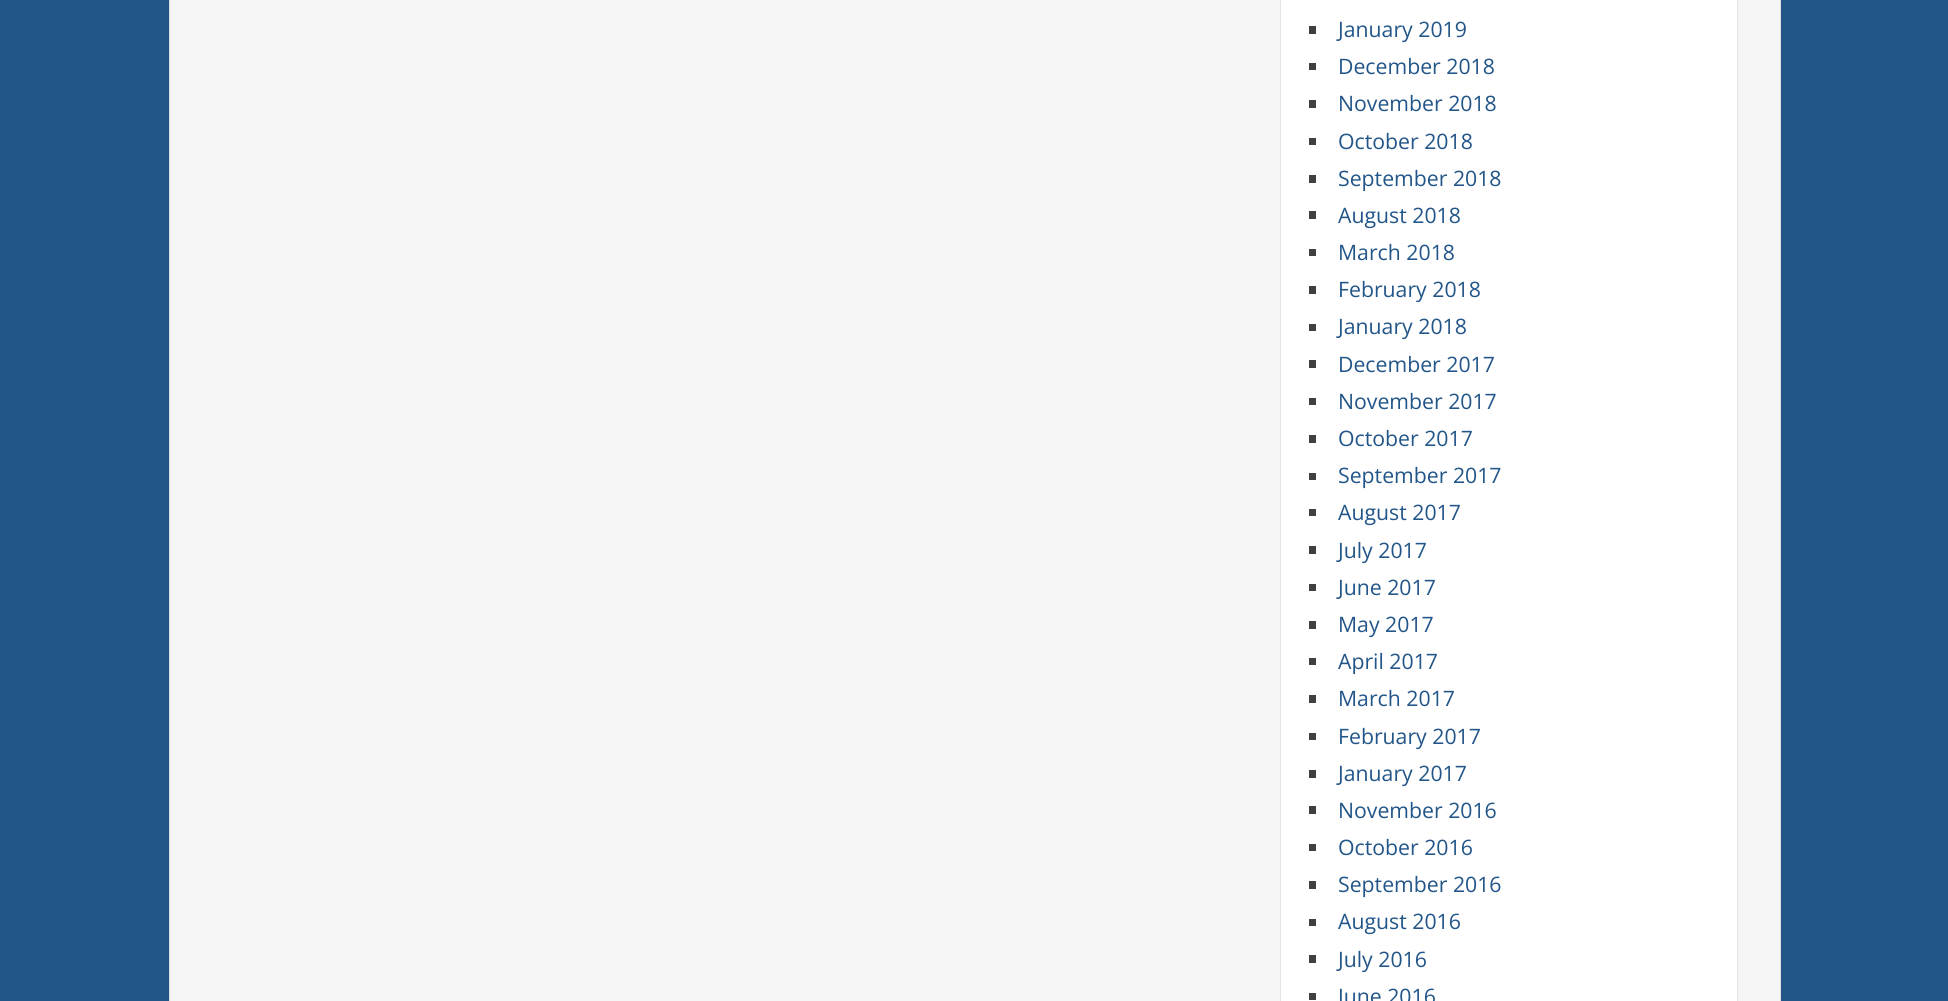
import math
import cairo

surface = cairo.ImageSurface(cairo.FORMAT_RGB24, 1948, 1001)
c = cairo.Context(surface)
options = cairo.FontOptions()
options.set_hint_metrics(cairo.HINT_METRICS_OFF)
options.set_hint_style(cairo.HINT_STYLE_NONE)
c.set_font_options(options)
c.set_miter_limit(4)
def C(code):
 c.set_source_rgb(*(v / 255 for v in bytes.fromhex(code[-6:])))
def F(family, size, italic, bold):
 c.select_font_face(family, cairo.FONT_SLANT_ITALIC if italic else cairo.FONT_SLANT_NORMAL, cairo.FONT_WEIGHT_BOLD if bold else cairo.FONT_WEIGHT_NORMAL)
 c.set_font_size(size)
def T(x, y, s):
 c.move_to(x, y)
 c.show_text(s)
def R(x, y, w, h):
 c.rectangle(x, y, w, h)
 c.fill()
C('225588')
c.paint()
C('f5f5f5')
R(170,0,1610,1001)
C('dddddd')
R(1780,0,1,1001)
R(169,0,1,1001)
C('ffffff')
c.rectangle(1280.5,-.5,457,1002)
c.fill_preserve()
C('e5e5e5')
c.set_line_width(1)
c.stroke()
C('404040')
R(1309,26,7,8)
F('Open Sans',21.25,0,0)
C('225588')
T(1338,37,'January 2019')
C('404040')
R(1309,63,7,7)
C('225588')
T(1338,74,'December 2018')
C('404040')
R(1309,100,7,8)
C('225588')
T(1338,111,'November 2018')
C('404040')
R(1309,138,7,7)
C('225588')
T(1338,149,'October 2018')
C('404040')
R(1309,175,7,8)
C('225588')
T(1338,186,'September 2018')
C('404040')
R(1309,211,7,8)
C('225588')
T(1338,223,'August 2018')
C('404040')
R(1309,249,7,7)
C('225588')
T(1338,260,'March 2018')
C('404040')
R(1309,286,7,8)
C('225588')
T(1338,297,'February 2018')
C('404040')
R(1309,324,7,7)
C('225588')
T(1338,334,'January 2018')
C('404040')
R(1309,360,7,8)
C('225588')
T(1338,372,'December 2017')
C('404040')
R(1309,398,7,7)
C('225588')
T(1338,409,'November 2017')
C('404040')
R(1309,435,7,8)
C('225588')
T(1338,446,'October 2017')
C('404040')
R(1309,473,7,7)
C('225588')
T(1338,483,'September 2017')
C('404040')
R(1309,509,7,7)
C('225588')
T(1338,520,'August 2017')
C('404040')
R(1309,546,7,8)
C('225588')
T(1338,558,'July 2017')
C('404040')
R(1309,584,7,7)
C('225588')
T(1338,595,'June 2017')
C('404040')
R(1309,621,7,8)
C('225588')
T(1338,632,'May 2017')
C('404040')
R(1309,658,7,7)
C('225588')
T(1338,669,'April 2017')
C('404040')
R(1309,695,7,8)
C('225588')
T(1338,706,'March 2017')
C('404040')
R(1309,733,7,7)
C('225588')
T(1338,744,'February 2017')
C('404040')
R(1309,770,7,8)
C('225588')
T(1338,781,'January 2017')
C('404040')
R(1309,806,7,8)
C('225588')
T(1338,818,'November 2016')
C('404040')
R(1309,844,7,7)
C('225588')
T(1338,855,'October 2016')
C('404040')
R(1309,881,7,8)
C('225588')
T(1338,892,'September 2016')
C('404040')
R(1309,919,7,7)
C('225588')
T(1338,929,'August 2016')
C('404040')
R(1309,955,7,8)
C('225588')
T(1338,967,'July 2016')
C('404040')
R(1309,993,7,7)
C('225588')
T(1338,1004,'June 2016')
surface.write_to_png('o.png')
